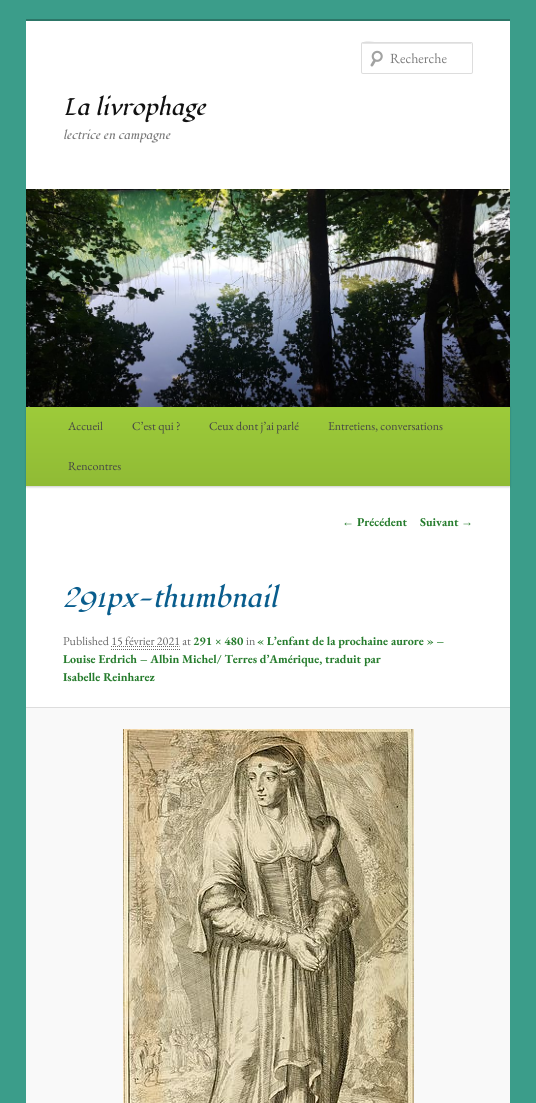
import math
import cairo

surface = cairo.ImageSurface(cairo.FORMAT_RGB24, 536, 1103)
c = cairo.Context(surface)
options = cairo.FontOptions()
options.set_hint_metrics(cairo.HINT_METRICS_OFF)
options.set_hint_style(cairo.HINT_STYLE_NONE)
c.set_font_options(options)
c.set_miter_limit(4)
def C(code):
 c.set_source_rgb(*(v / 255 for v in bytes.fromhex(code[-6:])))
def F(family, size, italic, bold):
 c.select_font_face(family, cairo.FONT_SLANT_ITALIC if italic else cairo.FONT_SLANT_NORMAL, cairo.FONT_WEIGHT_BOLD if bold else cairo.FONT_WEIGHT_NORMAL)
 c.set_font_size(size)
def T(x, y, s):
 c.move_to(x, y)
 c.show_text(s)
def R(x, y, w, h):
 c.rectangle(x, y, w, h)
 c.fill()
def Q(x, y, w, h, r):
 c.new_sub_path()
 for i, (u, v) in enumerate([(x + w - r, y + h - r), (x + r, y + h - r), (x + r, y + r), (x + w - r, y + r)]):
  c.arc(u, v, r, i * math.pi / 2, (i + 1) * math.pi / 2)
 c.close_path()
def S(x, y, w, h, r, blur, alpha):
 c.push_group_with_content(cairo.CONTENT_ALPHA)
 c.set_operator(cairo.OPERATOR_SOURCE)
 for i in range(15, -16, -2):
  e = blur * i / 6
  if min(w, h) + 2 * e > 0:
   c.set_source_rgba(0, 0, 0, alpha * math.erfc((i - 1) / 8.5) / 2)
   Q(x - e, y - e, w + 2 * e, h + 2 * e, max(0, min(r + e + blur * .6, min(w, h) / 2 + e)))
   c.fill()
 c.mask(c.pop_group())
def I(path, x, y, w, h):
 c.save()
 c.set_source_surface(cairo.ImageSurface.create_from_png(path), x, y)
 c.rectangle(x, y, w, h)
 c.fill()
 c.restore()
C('3b9d8a')
c.paint()
C('ffffff')
R(26,21,484,686)
C('2c7667')
R(26,19,484,2)
I('1.png',370,50,13,17)
C('e6e6e6')
c.new_path()
c.move_to(363,44)
c.line_to(472,44)
c.line_to(472,45)
c.line_to(471,43)
c.line_to(381,43)
c.curve_to(377,43,362,38,362,45)
c.curve_to(362,44,362,44,363,44)
c.close_path()
c.fill()
Q(361.5,42.5,111,31,1.5)
C('dddddd')
c.set_line_width(1)
c.stroke()
F('EB Garamond',14,0,0)
C('7a7a7a')
T(390,63,'Recherche')
F('Fondamento',24,1,0)
C('111111')
T(63,115,'La livrophage')
F('Fondamento',12,1,0)
C('7a7a7a')
T(63,139,'lectrice en campagne')
C('000000')
S(26,407,484,80,0,1,.2)
I('2.png',26,189,484,218)
gradient = cairo.LinearGradient(268,406,268,486)
gradient.add_color_stop_rgba(0,0.616,0.796,0.227,1)
gradient.add_color_stop_rgba(1,0.565,0.733,0.208,1)
c.set_source(gradient)
R(26,407,484,79)
F('EB Garamond',12,0,0)
C('444444')
T(68,430,'Accueil')
T(132,430,'C’est qui ?')
T(209,430,'Ceux dont j’ai parlé')
T(328,430,'Entretiens, conversations')
T(68,470,'Rencontres')
F('Liberation Serif',12,0,1)
C('267c2d')
T(342,526,'←')
F('EB Garamond',12,0,1)
T(357,526,'Précédent')
T(420,526,'Suivant')
F('Liberation Serif',12,0,1)
T(461,526,'→')
F('Fondamento',28,1,0)
C('095d8d')
T(63,607,'291px-thumbnail')
F('EB Garamond',12,0,0)
C('666666')
T(63,645,'Published 15 février 2021 at')
F('EB Garamond',12,0,1)
C('267c2d')
T(193,645,'291 × 480')
F('EB Garamond',12,0,0)
C('666666')
T(246,645,'in')
F('EB Garamond',12,0,1)
C('267c2d')
T(257,645,'« L’enfant de la prochaine aurore » –')
c.new_path()
c.move_to(111,646.5)
c.line_to(179.5,646.5)
C('666666')
c.set_dash([1,1])
c.stroke()
c.new_path()
c.move_to(111,649.5)
c.line_to(180,649.5)
c.stroke()
C('267c2d')
T(63,663,'Louise Erdrich – Albin Michel/ Terres d’Amérique, traduit par')
T(63,681,'Isabelle Reinharez')
C('f9f9f9')
R(26,708,484,395)
C('dddddd')
R(26,707,484,1)
I('3.png',123,729,291,374)
surface.write_to_png('o.png')
